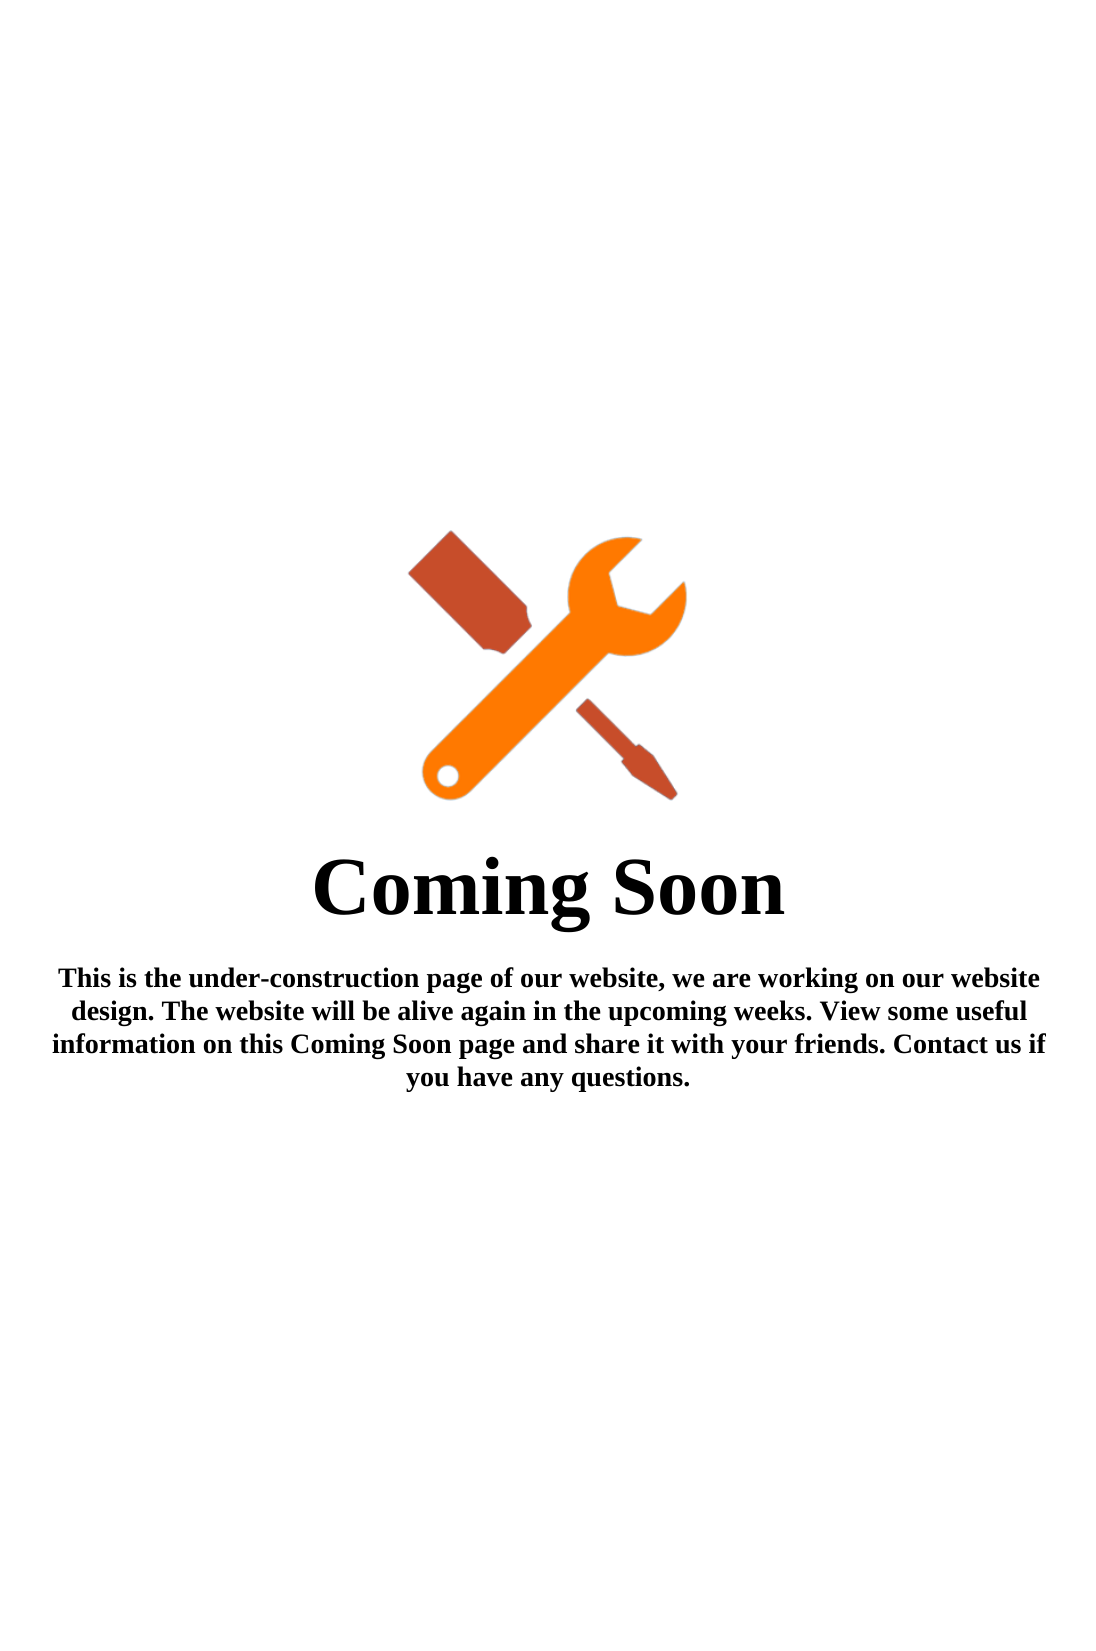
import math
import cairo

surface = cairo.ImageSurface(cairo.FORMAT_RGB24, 1096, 1651)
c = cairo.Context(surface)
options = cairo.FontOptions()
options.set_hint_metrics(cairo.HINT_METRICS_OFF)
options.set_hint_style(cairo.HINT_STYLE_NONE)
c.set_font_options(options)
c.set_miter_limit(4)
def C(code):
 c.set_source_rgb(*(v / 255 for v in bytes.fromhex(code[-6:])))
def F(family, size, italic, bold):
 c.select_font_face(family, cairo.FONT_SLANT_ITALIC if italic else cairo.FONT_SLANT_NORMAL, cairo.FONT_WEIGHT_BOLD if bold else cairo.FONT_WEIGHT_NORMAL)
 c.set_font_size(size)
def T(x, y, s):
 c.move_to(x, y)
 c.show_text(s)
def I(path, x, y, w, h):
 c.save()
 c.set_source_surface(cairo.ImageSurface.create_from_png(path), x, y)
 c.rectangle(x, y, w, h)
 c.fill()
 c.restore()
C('ffffff')
c.paint()
I('1.png',407,530,281,271)
F('Liberation Serif',82.5,0,1)
C('000000')
T(311,914,'Coming Soon')
F('Liberation Serif',28.1,0,1)
T(58,987,'This is the under-construction page of our website, we are working on our website')
T(71,1020,'design. The website will be alive again in the upcoming weeks. View some useful')
T(52,1053,'information on this Coming Soon page and share it with your friends. Contact us if')
T(406,1086,'you have any questions.')
surface.write_to_png('o.png')
